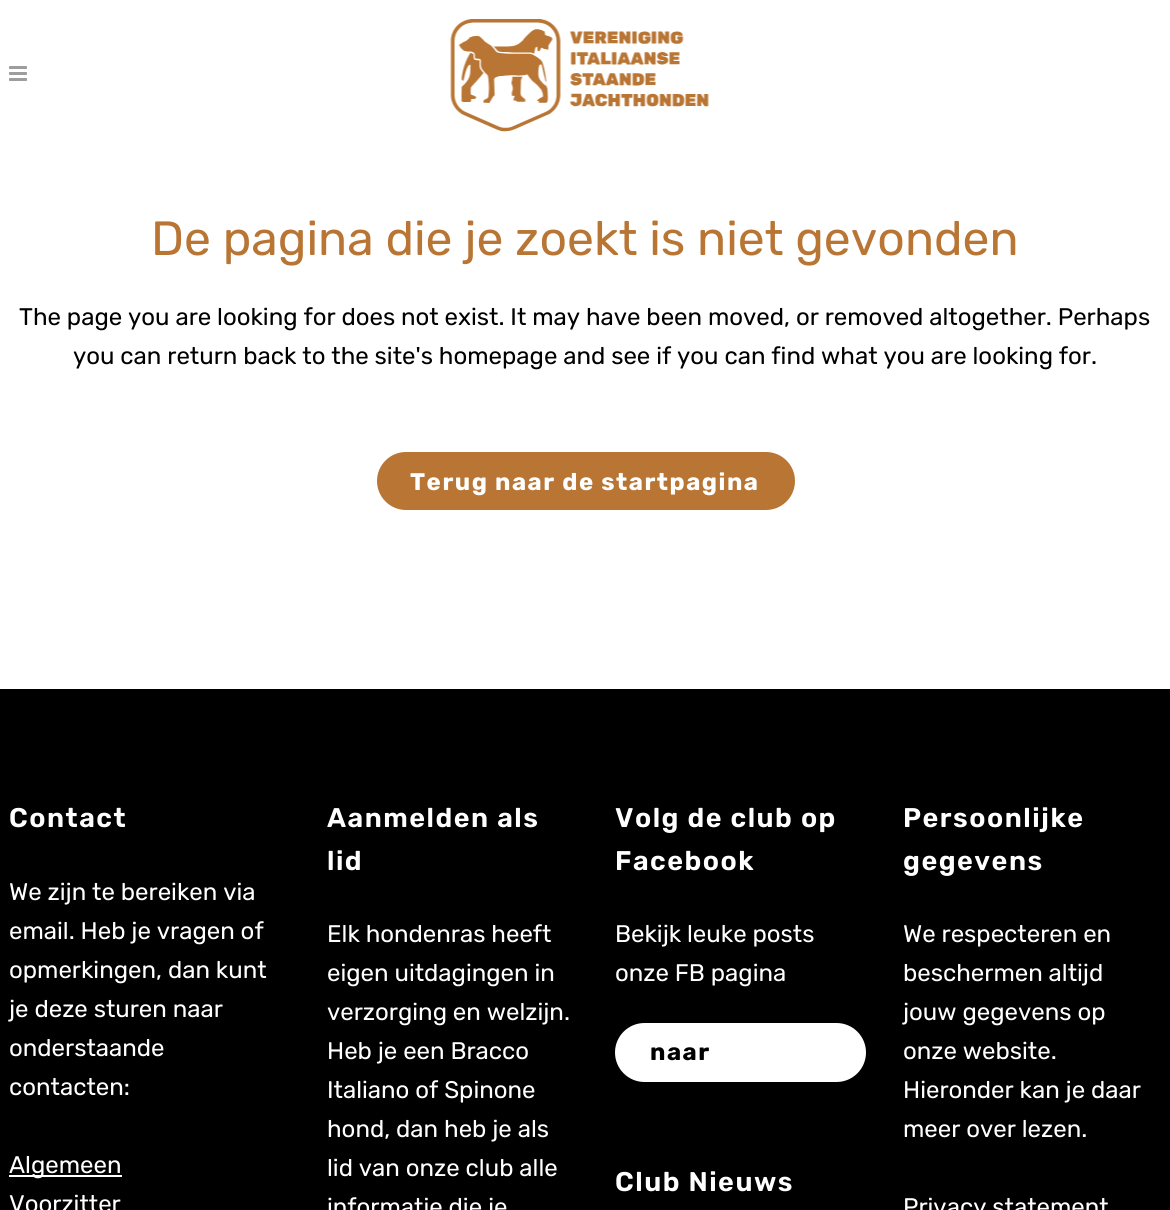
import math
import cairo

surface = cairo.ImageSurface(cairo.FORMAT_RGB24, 1170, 1210)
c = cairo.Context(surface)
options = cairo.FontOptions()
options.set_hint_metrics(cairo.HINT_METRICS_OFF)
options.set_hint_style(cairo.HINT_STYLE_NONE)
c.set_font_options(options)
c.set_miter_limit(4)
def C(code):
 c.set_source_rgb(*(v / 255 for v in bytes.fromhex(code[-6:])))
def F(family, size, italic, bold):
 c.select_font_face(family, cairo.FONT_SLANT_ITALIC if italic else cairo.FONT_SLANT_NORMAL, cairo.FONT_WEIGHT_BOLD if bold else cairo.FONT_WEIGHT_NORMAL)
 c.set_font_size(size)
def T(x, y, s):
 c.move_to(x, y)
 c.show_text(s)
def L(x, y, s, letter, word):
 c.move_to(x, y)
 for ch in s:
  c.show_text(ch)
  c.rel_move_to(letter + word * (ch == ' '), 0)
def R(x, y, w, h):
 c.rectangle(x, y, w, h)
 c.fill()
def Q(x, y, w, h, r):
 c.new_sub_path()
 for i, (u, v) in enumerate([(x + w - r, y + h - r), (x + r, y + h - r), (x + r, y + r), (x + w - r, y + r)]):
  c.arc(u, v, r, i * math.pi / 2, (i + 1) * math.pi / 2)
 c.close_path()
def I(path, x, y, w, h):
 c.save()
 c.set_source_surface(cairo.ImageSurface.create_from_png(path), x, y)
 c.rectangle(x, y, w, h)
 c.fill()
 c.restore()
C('ffffff')
c.paint()
I('1.png',9,66,18,15)
I('2.png',450,19,259,113)
F('Rubik',48,0,0)
C('b87534')
T(151,255,'De pagina die je zoekt is niet gevonden')
F('Rubik',24,0,0)
C('000000')
T(19,325,'The page you are looking for does not exist. It may have been moved, or removed altogether. Perhaps')
T(73,364,'you can return back to the site\'s homepage and see if you can find what you are looking for.')
C('b87534')
Q(377,452,418,58,29)
c.fill()
F('Rubik',24,0,1)
C('ffffff')
L(410,490,'Terug naar de startpagina',1.5,0)
C('000000')
R(0,689,1170,521)
F('Rubik SemiBold',27,0,0)
C('ffffff')
L(9,827,'Contact',1.5,0)
F('Rubik',24,0,0)
T(9,900,'We zijn te bereiken via')
T(9,939,'email. Heb je vragen of')
T(9,978,'opmerkingen, dan kunt')
T(9,1017,'je deze sturen naar')
T(9,1056,'onderstaande')
T(9,1095,'contacten:')
R(9,1175,113,2)
T(9,1173,'Algemeen')
T(9,1212,'Voorzitter')
F('Rubik SemiBold',27,0,0)
L(327,827,'Aanmelden als',1.5,0)
L(327,870,'lid',1.5,0)
F('Rubik',24,0,0)
T(327,942,'Elk hondenras heeft')
T(327,981,'eigen uitdagingen in')
T(327,1020,'verzorging en welzijn.')
T(327,1059,'Heb je een Bracco')
T(327,1098,'Italiano of Spinone')
T(327,1137,'hond, dan heb je als')
T(327,1176,'lid van onze club alle')
T(327,1215,'informatie die je')
F('Rubik SemiBold',27,0,0)
L(615,827,'Volg de club op',1.5,0)
L(615,870,'Facebook',1.5,0)
F('Rubik',24,0,0)
T(615,942,'Bekijk leuke posts')
T(615,981,'onze FB pagina')
Q(615,1023,251,59,29.5)
c.fill()
F('Rubik',24,0,1)
C('000000')
L(650,1060,'naar',1.5,0)
F('Rubik SemiBold',27,0,0)
C('ffffff')
L(615,1191,'Club Nieuws',1.5,0)
L(903,827,'Persoonlijke',1.5,0)
L(903,870,'gegevens',1.5,0)
F('Rubik',24,0,0)
T(903,942,'We respecteren en')
T(903,981,'beschermen altijd')
T(903,1020,'jouw gegevens op')
T(903,1059,'onze website.')
T(903,1098,'Hieronder kan je daar')
T(903,1137,'meer over lezen.')
T(903,1215,'Privacy statement')
surface.write_to_png('o.png')
